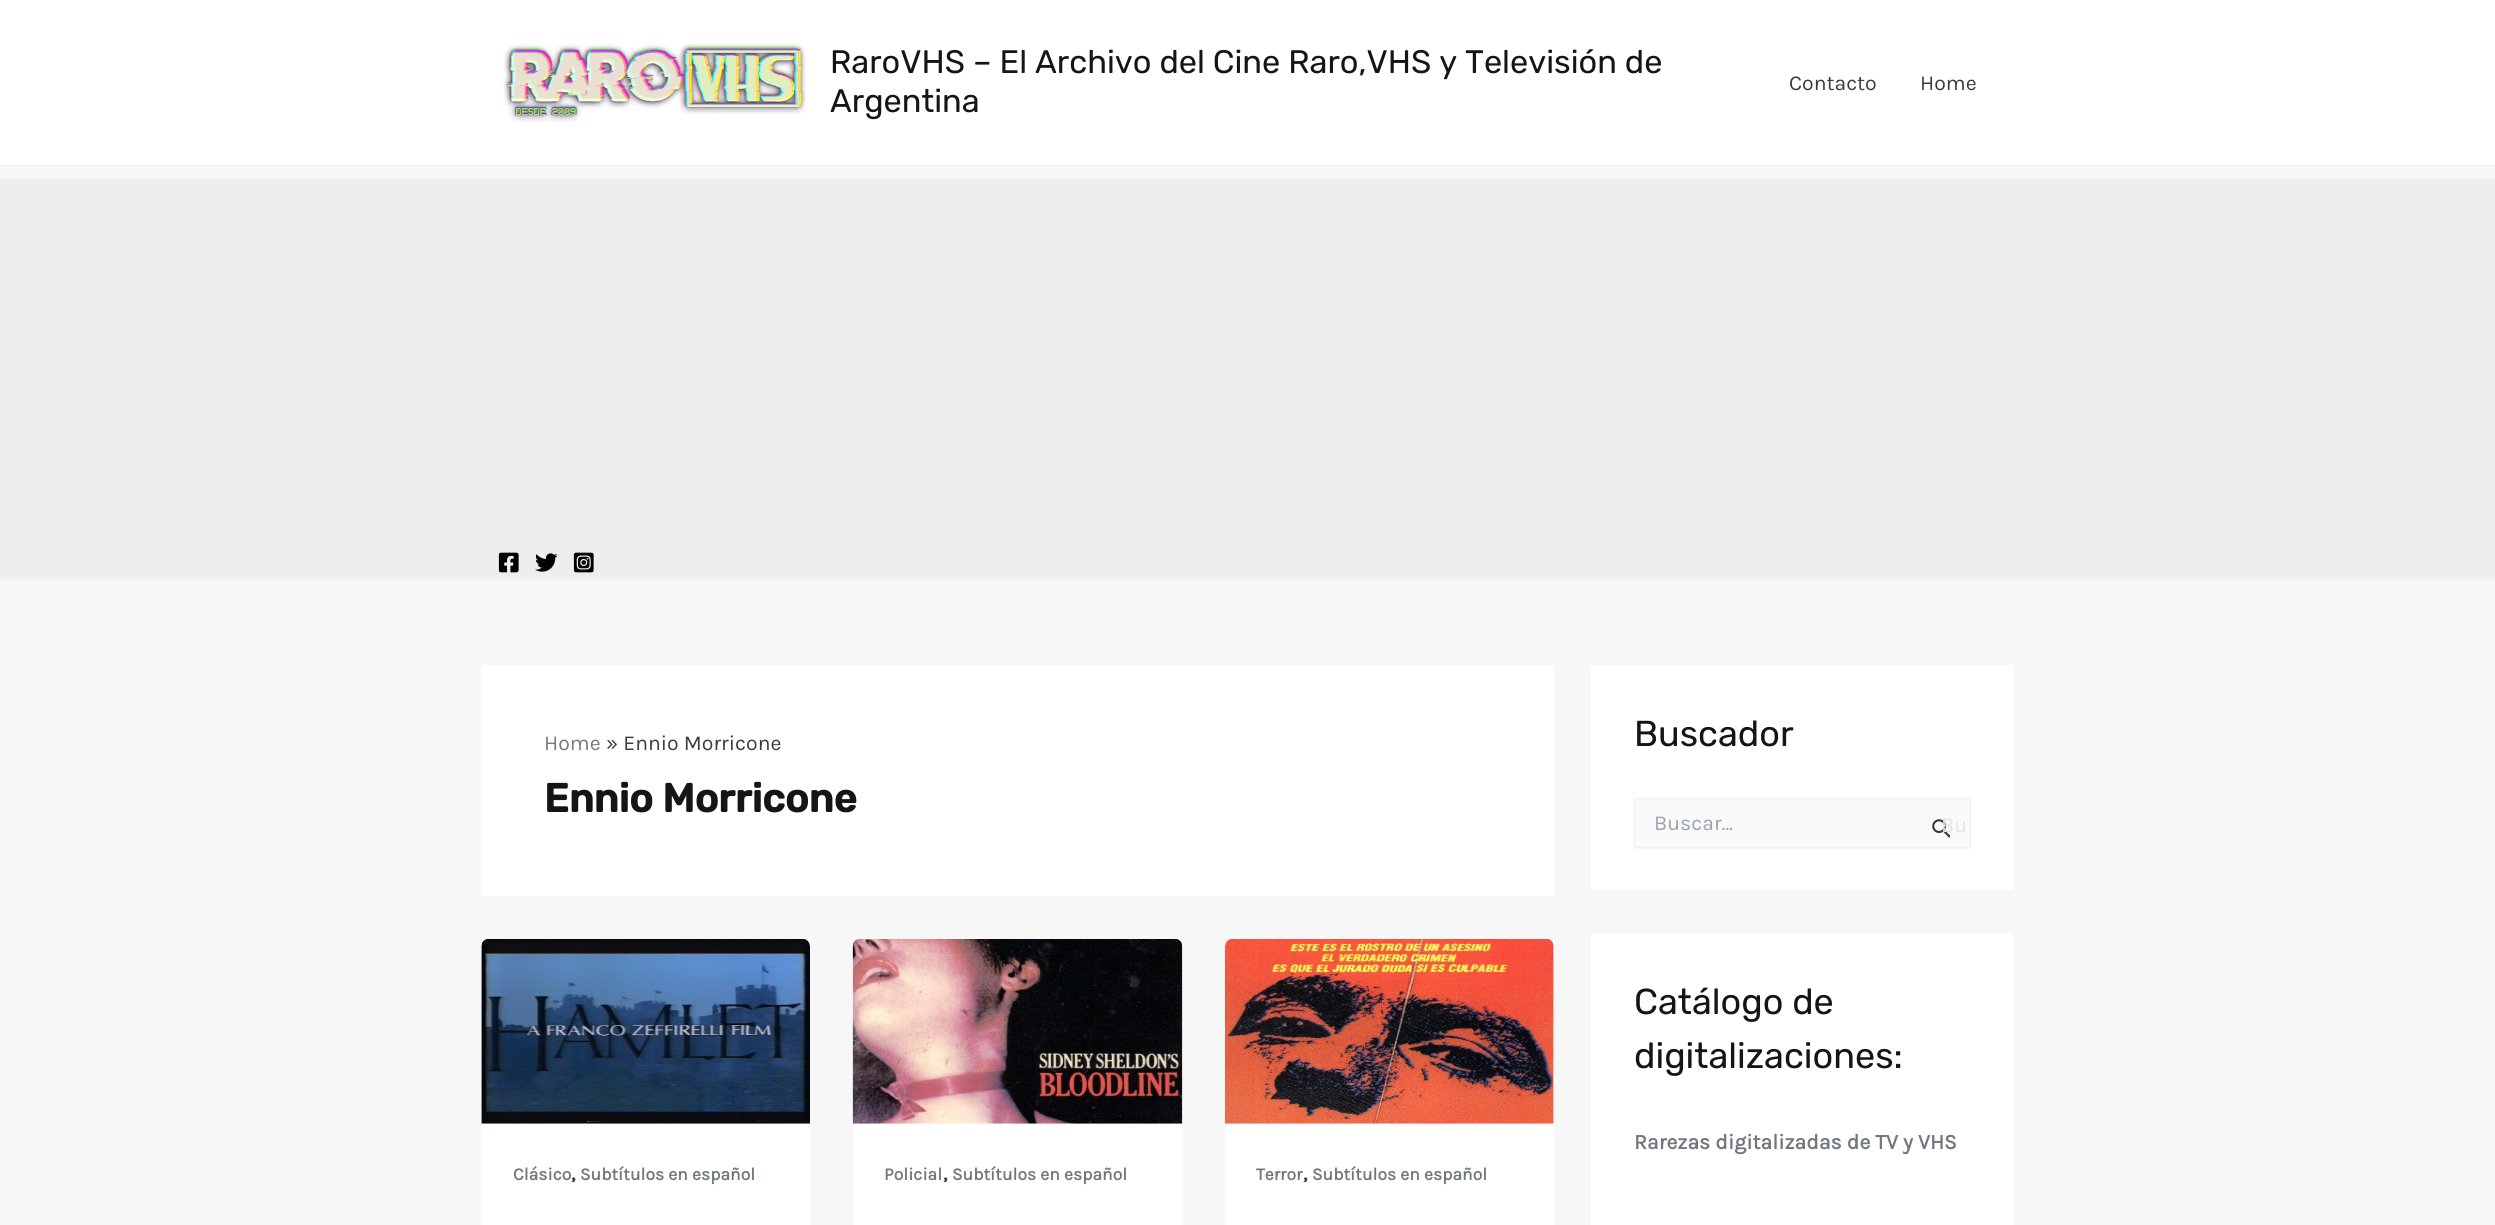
#include <cairo.h>
#include <math.h>
#include <stddef.h>


static void round_rect(cairo_t *cr, double x, double y, double w, double h, double r) {
    cairo_new_sub_path(cr);
    cairo_arc(cr, x + w - r, y + h - r, r, 0, M_PI / 2);
    cairo_arc(cr, x + r, y + h - r, r, M_PI / 2, M_PI);
    cairo_arc(cr, x + r, y + r, r, M_PI, 1.5 * M_PI);
    cairo_arc(cr, x + w - r, y + r, r, 1.5 * M_PI, 2 * M_PI);
    cairo_close_path(cr);
}

static void shadow(cairo_t *cr, double x, double y, double w, double h, double r, double blur, double alpha) {
    cairo_push_group_with_content(cr, CAIRO_CONTENT_ALPHA);
    cairo_set_operator(cr, CAIRO_OPERATOR_SOURCE);
    for (int i = 15; i >= -15 && fmin(w, h) + blur * i / 3 > 0; i -= 2) {
        double e = blur * i / 6;
        cairo_set_source_rgba(cr, 0, 0, 0, alpha * erfc((i - 1) / 8.5) / 2);
        round_rect(cr, x - e, y - e, w + 2 * e, h + 2 * e, fmax(0, fmin(r + e + blur * .6, fmin(w, h) / 2 + e)));
        cairo_fill(cr);
    }
    cairo_pattern_t *soft = cairo_pop_group(cr);
    cairo_mask(cr, soft);
    cairo_pattern_destroy(soft);
}

static void picture(cairo_t *cr, const char *path, double x, double y, double w, double h) {
    cairo_surface_t *image = cairo_image_surface_create_from_png(path);
    cairo_save(cr);
    cairo_set_source_surface(cr, image, x, y);
    cairo_rectangle(cr, x, y, w, h);
    cairo_fill(cr);
    cairo_restore(cr);
    cairo_surface_destroy(image);
}

int main(void) {
    cairo_surface_t *surface = cairo_image_surface_create(CAIRO_FORMAT_RGB24, 2495, 1225);
    cairo_t *cr = cairo_create(surface);
    cairo_font_options_t *options = cairo_font_options_create();
    cairo_font_options_set_hint_metrics(options, CAIRO_HINT_METRICS_OFF);
    cairo_font_options_set_hint_style(options, CAIRO_HINT_STYLE_NONE);
    cairo_set_font_options(cr, options);
    cairo_set_miter_limit(cr, 4);
    cairo_set_source_rgb(cr, 0.965, 0.965, 0.965);
    cairo_paint(cr);
    cairo_set_source_rgb(cr, 1, 1, 1);
    cairo_rectangle(cr, 0, 0, 2495, 165);
    cairo_fill(cr);
    cairo_set_source_rgb(cr, 0.945, 0.941, 0.941);
    cairo_rectangle(cr, 0, 165, 2495, 1);
    cairo_fill(cr);
    picture(cr, "img1.png", 503, 43, 303, 79);
    cairo_select_font_face(cr, "Rubik", CAIRO_FONT_SLANT_NORMAL, CAIRO_FONT_WEIGHT_NORMAL);
    cairo_set_font_size(cr, 32.5);
    cairo_set_source_rgb(cr, 0.082, 0.086, 0.086);
    cairo_move_to(cr, 830, 73);
    cairo_show_text(cr, "RaroVHS – El Archivo del Cine Raro,VHS y Televisión de");
    cairo_move_to(cr, 830, 112);
    cairo_show_text(cr, "Argentina");
    cairo_select_font_face(cr, "Karla", CAIRO_FONT_SLANT_NORMAL, CAIRO_FONT_WEIGHT_NORMAL);
    cairo_set_font_size(cr, 21.25);
    cairo_set_source_rgb(cr, 0.224, 0.235, 0.251);
    cairo_move_to(cr, 1789, 90);
    cairo_show_text(cr, "Contacto");
    cairo_move_to(cr, 1920, 90);
    cairo_show_text(cr, "Home");
    cairo_set_source_rgb(cr, 0.933, 0.933, 0.933);
    cairo_rectangle(cr, 0, 179, 2495, 400);
    cairo_fill(cr);
    cairo_set_source_rgb(cr, 0.945, 0.941, 0.941);
    cairo_rectangle(cr, 0, 579, 2495, 1);
    cairo_fill(cr);
    picture(cr, "img2.png", 498, 552, 21, 21);
    picture(cr, "img3.png", 535, 553, 23, 19);
    picture(cr, "img4.png", 573, 552, 21, 21);
    cairo_set_source_rgb(cr, 1, 1, 1);
    cairo_rectangle(cr, 481, 665, 1073, 231);
    cairo_fill(cr);
    cairo_set_source_rgb(cr, 0.451, 0.471, 0.502);
    cairo_move_to(cr, 544, 750);
    cairo_show_text(cr, "Home");
    cairo_set_source_rgb(cr, 0.224, 0.235, 0.251);
    cairo_move_to(cr, 606, 750);
    cairo_show_text(cr, "» Ennio Morricone");
    cairo_select_font_face(cr, "Rubik", CAIRO_FONT_SLANT_NORMAL, CAIRO_FONT_WEIGHT_BOLD);
    cairo_set_font_size(cr, 40);
    cairo_set_source_rgb(cr, 0.082, 0.086, 0.086);
    cairo_move_to(cr, 544, 812);
    cairo_show_text(cr, "Ennio Morricone");
    cairo_set_source_rgb(cr, 1, 1, 1);
    round_rect(cr, 481, 939, 329, 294, 8);
    cairo_fill(cr);
    picture(cr, "img5.png", 481, 939, 329, 185);
    cairo_select_font_face(cr, "Karla", CAIRO_FONT_SLANT_NORMAL, CAIRO_FONT_WEIGHT_BOLD);
    cairo_set_font_size(cr, 17.5);
    cairo_set_source_rgb(cr, 0.451, 0.471, 0.502);
    cairo_move_to(cr, 513, 1180);
    cairo_show_text(cr, "Clásico");
    cairo_set_font_size(cr, 21.25);
    cairo_set_source_rgb(cr, 0.224, 0.235, 0.251);
    cairo_move_to(cr, 571, 1180);
    cairo_show_text(cr, ",");
    cairo_set_font_size(cr, 17.5);
    cairo_set_source_rgb(cr, 0.451, 0.471, 0.502);
    cairo_move_to(cr, 580, 1180);
    cairo_show_text(cr, "Subtítulos en español");
    cairo_set_source_rgb(cr, 1, 1, 1);
    round_rect(cr, 853, 939, 330, 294, 8);
    cairo_fill(cr);
    picture(cr, "img6.png", 852, 939, 331, 185);
    cairo_set_source_rgb(cr, 0.451, 0.471, 0.502);
    cairo_move_to(cr, 884, 1180);
    cairo_show_text(cr, "Policial");
    cairo_set_font_size(cr, 21.25);
    cairo_set_source_rgb(cr, 0.224, 0.235, 0.251);
    cairo_move_to(cr, 943, 1180);
    cairo_show_text(cr, ",");
    cairo_set_font_size(cr, 17.5);
    cairo_set_source_rgb(cr, 0.451, 0.471, 0.502);
    cairo_move_to(cr, 952, 1180);
    cairo_show_text(cr, "Subtítulos en español");
    cairo_set_source_rgb(cr, 1, 1, 1);
    round_rect(cr, 1225, 939, 329, 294, 8);
    cairo_fill(cr);
    picture(cr, "img7.png", 1225, 939, 329, 185);
    cairo_set_source_rgb(cr, 0.451, 0.471, 0.502);
    cairo_move_to(cr, 1256, 1180);
    cairo_show_text(cr, "Terror");
    cairo_set_font_size(cr, 21.25);
    cairo_set_source_rgb(cr, 0.224, 0.235, 0.251);
    cairo_move_to(cr, 1303, 1180);
    cairo_show_text(cr, ",");
    cairo_set_font_size(cr, 17.5);
    cairo_set_source_rgb(cr, 0.451, 0.471, 0.502);
    cairo_move_to(cr, 1312, 1180);
    cairo_show_text(cr, "Subtítulos en español");
    cairo_set_source_rgb(cr, 1, 1, 1);
    cairo_rectangle(cr, 1591, 665, 423, 225);
    cairo_fill(cr);
    cairo_select_font_face(cr, "Rubik", CAIRO_FONT_SLANT_NORMAL, CAIRO_FONT_WEIGHT_NORMAL);
    cairo_set_font_size(cr, 36);
    cairo_set_source_rgb(cr, 0.082, 0.086, 0.086);
    cairo_move_to(cr, 1634, 746);
    cairo_show_text(cr, "Buscador");
    cairo_set_source_rgb(cr, 0, 0, 0);
    shadow(cr, 1634, 799, 337, 50, 2.5, 1, 0.05);
    cairo_set_source_rgb(cr, 0.98, 0.98, 0.98);
    round_rect(cr, 1634.5, 798.5, 336, 49, 2);
    cairo_fill_preserve(cr);
    cairo_set_source_rgb(cr, 0.945, 0.941, 0.941);
    cairo_set_line_width(cr, 1);
    cairo_stroke(cr);
    cairo_select_font_face(cr, "Karla", CAIRO_FONT_SLANT_NORMAL, CAIRO_FONT_WEIGHT_NORMAL);
    cairo_set_font_size(cr, 21.25);
    cairo_set_source_rgb(cr, 0.612, 0.639, 0.686);
    cairo_move_to(cr, 1654, 830);
    cairo_show_text(cr, "Buscar...");
    picture(cr, "img8.png", 1932, 819, 18, 19);
    cairo_set_source_rgb(cr, 0.886, 0.886, 0.886);
    cairo_move_to(cr, 1941, 832);
    cairo_show_text(cr, "Bu");
    cairo_set_source_rgb(cr, 1, 1, 1);
    cairo_rectangle(cr, 1591, 933, 423, 292);
    cairo_fill(cr);
    cairo_select_font_face(cr, "Rubik", CAIRO_FONT_SLANT_NORMAL, CAIRO_FONT_WEIGHT_NORMAL);
    cairo_set_font_size(cr, 36);
    cairo_set_source_rgb(cr, 0.082, 0.086, 0.086);
    cairo_move_to(cr, 1634, 1014);
    cairo_show_text(cr, "Catálogo de");
    cairo_move_to(cr, 1634, 1068);
    cairo_show_text(cr, "digitalizaciones:");
    cairo_select_font_face(cr, "Karla", CAIRO_FONT_SLANT_NORMAL, CAIRO_FONT_WEIGHT_BOLD);
    cairo_set_font_size(cr, 21.25);
    cairo_set_source_rgb(cr, 0.451, 0.471, 0.502);
    cairo_move_to(cr, 1634, 1149);
    cairo_show_text(cr, "Rarezas digitalizadas de TV y VHS");
    cairo_surface_write_to_png(surface, "page.png");
    cairo_font_options_destroy(options);
    cairo_destroy(cr);
    cairo_surface_destroy(surface);
    return 0;
}
